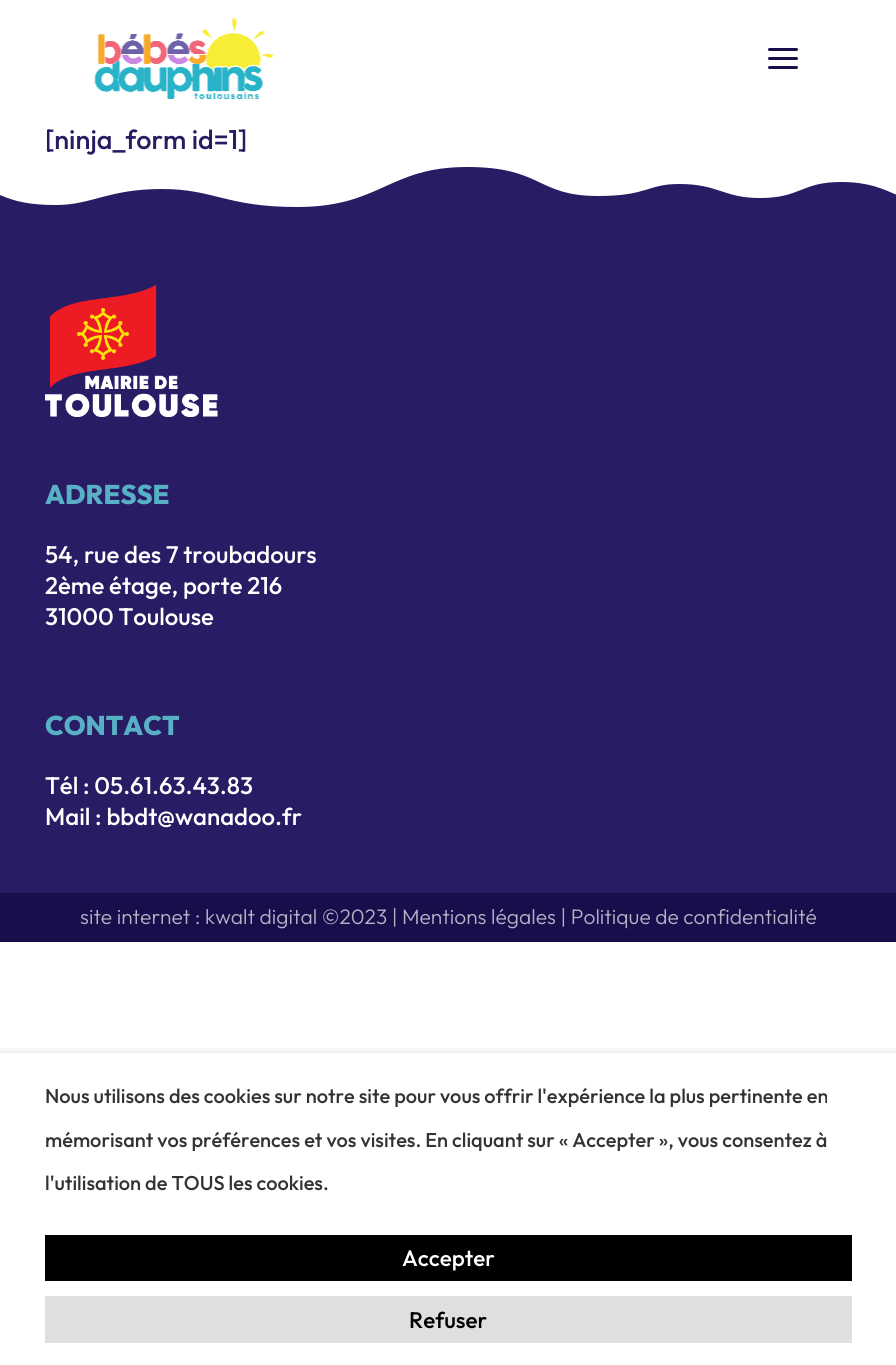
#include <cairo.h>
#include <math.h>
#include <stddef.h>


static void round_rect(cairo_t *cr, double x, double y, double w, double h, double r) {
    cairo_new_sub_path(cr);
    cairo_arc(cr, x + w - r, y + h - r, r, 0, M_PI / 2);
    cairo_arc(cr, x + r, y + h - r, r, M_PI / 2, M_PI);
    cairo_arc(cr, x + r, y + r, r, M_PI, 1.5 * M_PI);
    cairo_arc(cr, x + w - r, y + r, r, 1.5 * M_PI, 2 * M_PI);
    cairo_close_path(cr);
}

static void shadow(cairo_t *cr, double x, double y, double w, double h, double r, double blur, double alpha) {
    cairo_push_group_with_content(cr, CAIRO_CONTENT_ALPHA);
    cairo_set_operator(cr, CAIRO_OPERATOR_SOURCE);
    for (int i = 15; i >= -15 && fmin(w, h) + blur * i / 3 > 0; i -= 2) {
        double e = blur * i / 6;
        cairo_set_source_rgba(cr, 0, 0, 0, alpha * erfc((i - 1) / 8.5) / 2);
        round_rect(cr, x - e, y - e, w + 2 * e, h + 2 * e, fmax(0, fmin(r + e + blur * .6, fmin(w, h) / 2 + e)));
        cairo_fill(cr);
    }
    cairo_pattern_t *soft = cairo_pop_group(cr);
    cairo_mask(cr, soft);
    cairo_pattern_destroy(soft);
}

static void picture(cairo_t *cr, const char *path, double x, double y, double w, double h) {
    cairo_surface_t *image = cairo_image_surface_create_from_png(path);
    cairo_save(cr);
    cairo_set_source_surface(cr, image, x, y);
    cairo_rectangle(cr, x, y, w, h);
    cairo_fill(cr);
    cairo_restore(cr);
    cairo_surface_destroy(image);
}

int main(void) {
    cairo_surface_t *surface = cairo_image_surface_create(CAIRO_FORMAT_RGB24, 896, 1365);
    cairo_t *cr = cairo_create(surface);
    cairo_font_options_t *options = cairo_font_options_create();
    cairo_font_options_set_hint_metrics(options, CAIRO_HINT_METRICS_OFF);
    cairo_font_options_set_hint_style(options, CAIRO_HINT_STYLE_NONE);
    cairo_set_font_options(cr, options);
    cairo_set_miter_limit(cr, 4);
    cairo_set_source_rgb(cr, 1, 1, 1);
    cairo_paint(cr);
    picture(cr, "img1.png", 94, 18, 180, 82);
    picture(cr, "img2.png", 768, 48, 30, 21);
    cairo_select_font_face(cr, "Outfit Medium", CAIRO_FONT_SLANT_NORMAL, CAIRO_FONT_WEIGHT_NORMAL);
    cairo_set_font_size(cr, 27);
    cairo_set_source_rgb(cr, 0.157, 0.11, 0.392);
    cairo_move_to(cr, 45, 149);
    cairo_show_text(cr, "[ninja_form id=1]");
    cairo_rectangle(cr, 0, 167, 896, 726);
    cairo_fill(cr);
    cairo_set_source_rgb(cr, 1, 1, 1);
    cairo_new_path(cr);
    cairo_move_to(cr, 0, 162);
    cairo_line_to(cr, 0, 195);
    cairo_curve_to(cr, 14, 201, 28, 205, 56, 205);
    cairo_curve_to(cr, 92, 205, 108, 189, 162, 189);
    cairo_curve_to(cr, 214, 189, 226, 207, 297, 207);
    cairo_curve_to(cr, 381, 207, 388, 167, 467, 167);
    cairo_curve_to(cr, 543, 167, 536, 196, 598, 196);
    cairo_curve_to(cr, 648, 196, 647, 184, 679, 184);
    cairo_curve_to(cr, 719, 184, 723, 198, 760, 198);
    cairo_curve_to(cr, 801, 198, 801, 182, 841, 182);
    cairo_curve_to(cr, 869, 182, 883, 189, 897, 195);
    cairo_line_to(cr, 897, 162);
    cairo_close_path(cr);
    cairo_fill(cr);
    picture(cr, "img3.png", 45, 285, 173, 132);
    cairo_select_font_face(cr, "Outfit ExtraBold", CAIRO_FONT_SLANT_NORMAL, CAIRO_FONT_WEIGHT_NORMAL);
    cairo_set_source_rgb(cr, 0.345, 0.69, 0.773);
    cairo_move_to(cr, 45, 504);
    cairo_show_text(cr, "ADRESSE");
    cairo_select_font_face(cr, "Outfit Medium", CAIRO_FONT_SLANT_NORMAL, CAIRO_FONT_WEIGHT_NORMAL);
    cairo_set_font_size(cr, 24);
    cairo_set_source_rgb(cr, 1, 1, 1);
    cairo_move_to(cr, 45, 563);
    cairo_show_text(cr, "54, rue des 7 troubadours");
    cairo_move_to(cr, 45, 594);
    cairo_show_text(cr, "2ème étage, porte 216");
    cairo_move_to(cr, 45, 625);
    cairo_show_text(cr, "31000 Toulouse");
    cairo_select_font_face(cr, "Outfit ExtraBold", CAIRO_FONT_SLANT_NORMAL, CAIRO_FONT_WEIGHT_NORMAL);
    cairo_set_font_size(cr, 27);
    cairo_set_source_rgb(cr, 0.345, 0.69, 0.773);
    cairo_move_to(cr, 45, 735);
    cairo_show_text(cr, "CONTACT");
    cairo_select_font_face(cr, "Outfit Medium", CAIRO_FONT_SLANT_NORMAL, CAIRO_FONT_WEIGHT_NORMAL);
    cairo_set_font_size(cr, 24);
    cairo_set_source_rgb(cr, 1, 1, 1);
    cairo_move_to(cr, 45, 794);
    cairo_show_text(cr, "Tél : 05.61.63.43.83");
    cairo_move_to(cr, 45, 825);
    cairo_show_text(cr, "Mail : bbdt@wanadoo.fr");
    cairo_set_source_rgb(cr, 0.098, 0.055, 0.294);
    cairo_rectangle(cr, 0, 893, 896, 49);
    cairo_fill(cr);
    cairo_select_font_face(cr, "Outfit Light", CAIRO_FONT_SLANT_NORMAL, CAIRO_FONT_WEIGHT_NORMAL);
    cairo_set_font_size(cr, 21);
    cairo_set_source_rgb(cr, 0.71, 0.698, 0.773);
    cairo_move_to(cr, 80, 924);
    cairo_show_text(cr, "site internet : kwalt digital ©2023 | Mentions légales | Politique de confidentialité");
    cairo_save(cr);
    cairo_rectangle(cr, 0, 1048, 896, 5);
    cairo_clip(cr);
    cairo_set_source_rgb(cr, 0, 0, 0);
    shadow(cr, 0, 1061, 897, 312, 0, 7.5, 0.5);
    cairo_restore(cr);
    cairo_select_font_face(cr, "Outfit Medium", CAIRO_FONT_SLANT_NORMAL, CAIRO_FONT_WEIGHT_NORMAL);
    cairo_set_font_size(cr, 20);
    cairo_set_source_rgb(cr, 0.2, 0.2, 0.2);
    cairo_move_to(cr, 45, 1103);
    cairo_show_text(cr, "Nous utilisons des cookies sur notre site pour vous offrir l'expérience la plus pertinente en");
    cairo_move_to(cr, 45, 1147);
    cairo_show_text(cr, "mémorisant vos préférences et vos visites. En cliquant sur « Accepter », vous consentez à");
    cairo_move_to(cr, 45, 1190);
    cairo_show_text(cr, "l'utilisation de TOUS les cookies.");
    cairo_set_source_rgb(cr, 0, 0, 0);
    cairo_rectangle(cr, 45, 1235, 807, 46);
    cairo_fill(cr);
    cairo_set_font_size(cr, 22.5);
    cairo_set_source_rgb(cr, 1, 1, 1);
    cairo_move_to(cr, 402, 1266);
    cairo_show_text(cr, "Accepter");
    cairo_set_source_rgb(cr, 0.871, 0.875, 0.878);
    cairo_rectangle(cr, 45, 1296, 807, 47);
    cairo_fill(cr);
    cairo_set_source_rgb(cr, 0, 0, 0);
    cairo_move_to(cr, 409, 1328);
    cairo_show_text(cr, "Refuser");
    cairo_surface_write_to_png(surface, "page.png");
    cairo_font_options_destroy(options);
    cairo_destroy(cr);
    cairo_surface_destroy(surface);
    return 0;
}
